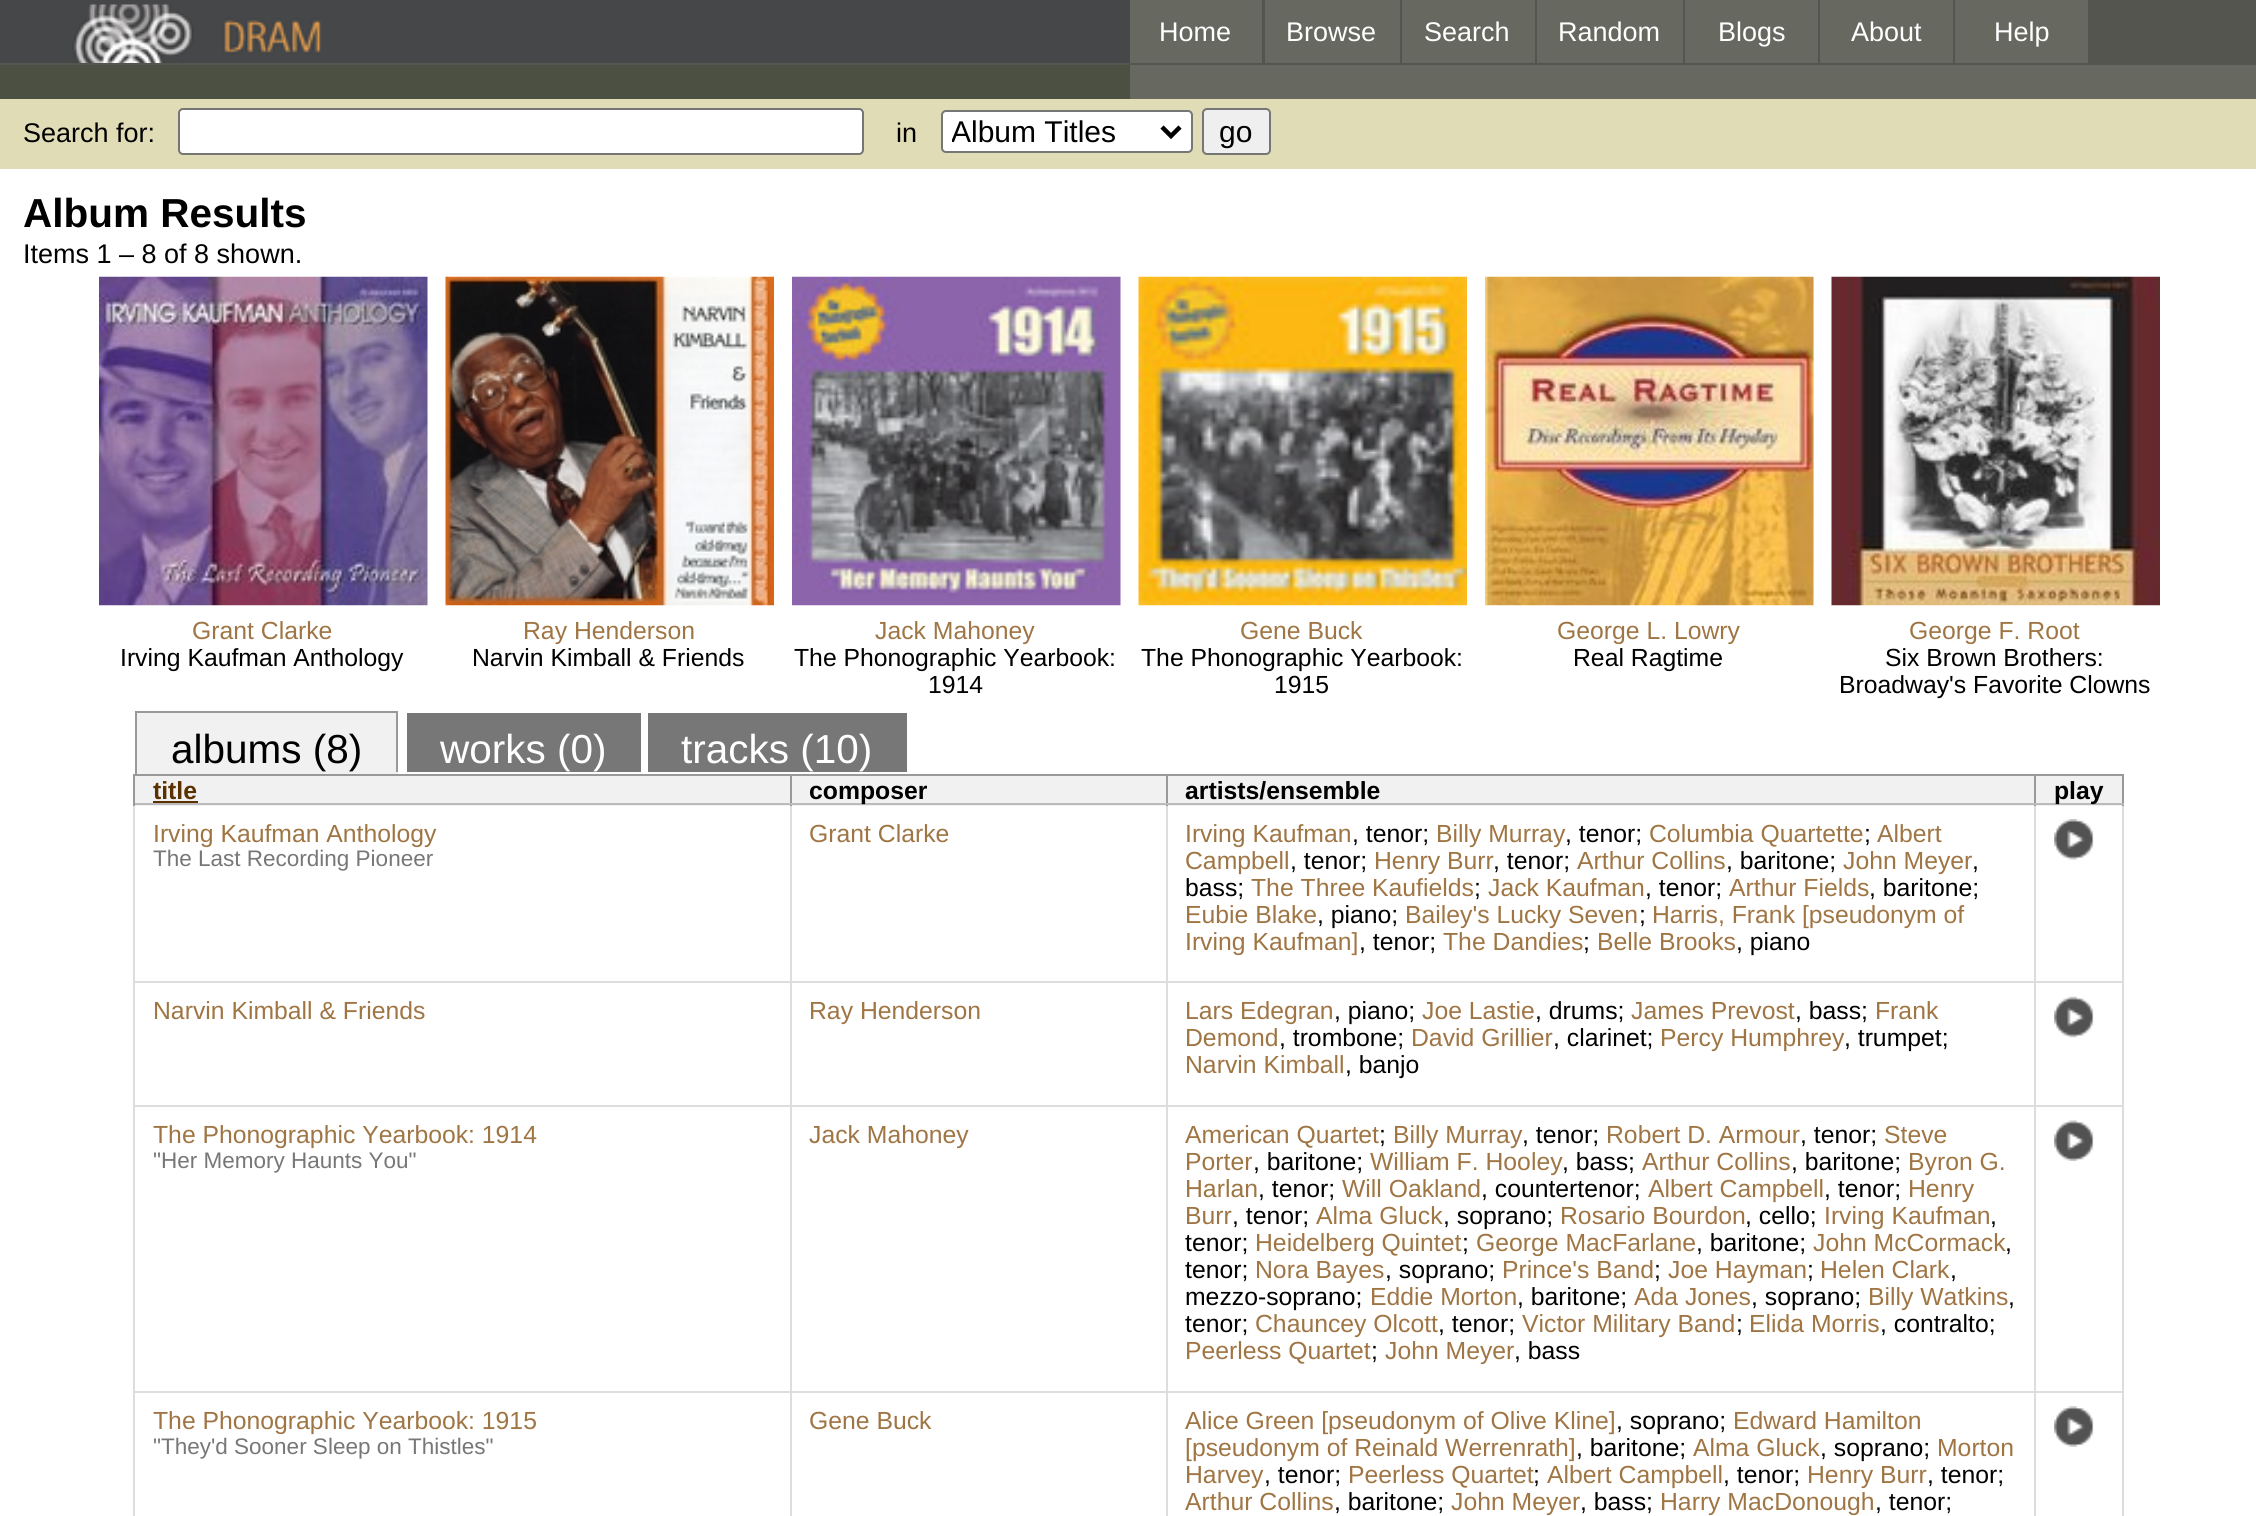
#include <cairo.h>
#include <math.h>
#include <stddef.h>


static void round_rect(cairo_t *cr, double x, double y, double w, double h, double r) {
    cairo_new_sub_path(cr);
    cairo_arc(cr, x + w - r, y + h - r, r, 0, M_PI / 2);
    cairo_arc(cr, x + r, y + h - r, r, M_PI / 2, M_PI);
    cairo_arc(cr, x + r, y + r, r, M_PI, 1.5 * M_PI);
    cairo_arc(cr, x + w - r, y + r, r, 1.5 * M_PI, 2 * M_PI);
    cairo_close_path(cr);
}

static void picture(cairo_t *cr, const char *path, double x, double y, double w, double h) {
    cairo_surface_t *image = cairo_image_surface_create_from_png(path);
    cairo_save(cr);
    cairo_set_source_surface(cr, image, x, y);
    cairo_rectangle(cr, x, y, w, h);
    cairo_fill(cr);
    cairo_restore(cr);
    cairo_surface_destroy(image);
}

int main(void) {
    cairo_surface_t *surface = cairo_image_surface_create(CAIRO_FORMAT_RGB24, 2256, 1516);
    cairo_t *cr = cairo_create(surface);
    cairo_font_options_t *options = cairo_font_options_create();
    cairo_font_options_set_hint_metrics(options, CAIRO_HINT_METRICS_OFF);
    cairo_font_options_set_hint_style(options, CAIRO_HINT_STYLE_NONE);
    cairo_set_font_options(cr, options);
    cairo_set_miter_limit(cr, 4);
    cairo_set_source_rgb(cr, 0.275, 0.278, 0.286);
    cairo_paint(cr);
    picture(cr, "img1.png", 72, 4, 250, 59);
    cairo_set_source_rgb(cr, 0.325, 0.333, 0.306);
    cairo_rectangle(cr, 1262, 0, 994, 63);
    cairo_fill(cr);
    cairo_set_source_rgb(cr, 0.404, 0.408, 0.373);
    cairo_rectangle(cr, 1130, 0, 132, 63);
    cairo_fill(cr);
    cairo_select_font_face(cr, "Liberation Sans", CAIRO_FONT_SLANT_NORMAL, CAIRO_FONT_WEIGHT_NORMAL);
    cairo_set_font_size(cr, 27);
    cairo_set_source_rgb(cr, 1, 1, 1);
    cairo_move_to(cr, 1159, 41);
    cairo_show_text(cr, "Home");
    cairo_set_source_rgb(cr, 0.404, 0.408, 0.373);
    cairo_rectangle(cr, 1265, 0, 135, 63);
    cairo_fill(cr);
    cairo_set_source_rgb(cr, 1, 1, 1);
    cairo_move_to(cr, 1286, 41);
    cairo_show_text(cr, "Browse");
    cairo_set_source_rgb(cr, 0.404, 0.408, 0.373);
    cairo_rectangle(cr, 1402, 0, 133, 63);
    cairo_fill(cr);
    cairo_set_source_rgb(cr, 1, 1, 1);
    cairo_move_to(cr, 1424, 41);
    cairo_show_text(cr, "Search");
    cairo_set_source_rgb(cr, 0.404, 0.408, 0.373);
    cairo_rectangle(cr, 1537, 0, 146, 63);
    cairo_fill(cr);
    cairo_set_source_rgb(cr, 1, 1, 1);
    cairo_move_to(cr, 1558, 41);
    cairo_show_text(cr, "Random");
    cairo_set_source_rgb(cr, 0.404, 0.408, 0.373);
    cairo_rectangle(cr, 1685, 0, 133, 63);
    cairo_fill(cr);
    cairo_set_source_rgb(cr, 1, 1, 1);
    cairo_move_to(cr, 1718, 41);
    cairo_show_text(cr, "Blogs");
    cairo_set_source_rgb(cr, 0.404, 0.408, 0.373);
    cairo_rectangle(cr, 1820, 0, 133, 63);
    cairo_fill(cr);
    cairo_set_source_rgb(cr, 1, 1, 1);
    cairo_move_to(cr, 1851, 41);
    cairo_show_text(cr, "About");
    cairo_set_source_rgb(cr, 0.404, 0.408, 0.373);
    cairo_rectangle(cr, 1955, 0, 133, 63);
    cairo_fill(cr);
    cairo_set_source_rgb(cr, 1, 1, 1);
    cairo_move_to(cr, 1994, 41);
    cairo_show_text(cr, "Help");
    cairo_set_source_rgb(cr, 0.404, 0.408, 0.373);
    cairo_rectangle(cr, 1130, 65, 1126, 34);
    cairo_fill(cr);
    cairo_set_source_rgb(cr, 0.325, 0.333, 0.306);
    cairo_rectangle(cr, 0, 63, 2256, 2);
    cairo_fill(cr);
    cairo_set_source_rgb(cr, 0.294, 0.314, 0.259);
    cairo_rectangle(cr, 0, 65, 1130, 34);
    cairo_fill(cr);
    cairo_set_source_rgb(cr, 0.875, 0.863, 0.714);
    cairo_rectangle(cr, 0, 99, 2256, 70);
    cairo_fill(cr);
    cairo_set_source_rgb(cr, 0, 0, 0);
    cairo_move_to(cr, 23, 142);
    cairo_show_text(cr, "Search for:");
    cairo_set_source_rgb(cr, 1, 1, 1);
    round_rect(cr, 179, 109, 684, 45, 4);
    cairo_fill_preserve(cr);
    cairo_set_source_rgb(cr, 0.463, 0.463, 0.463);
    cairo_stroke(cr);
    cairo_set_source_rgb(cr, 0, 0, 0);
    cairo_move_to(cr, 896, 142);
    cairo_show_text(cr, "in");
    cairo_set_source_rgb(cr, 1, 1, 1);
    round_rect(cr, 942, 111, 250, 41, 4);
    cairo_fill_preserve(cr);
    cairo_set_source_rgb(cr, 0.463, 0.463, 0.463);
    cairo_stroke(cr);
    cairo_new_path(cr);
    cairo_move_to(cr, 1162, 127);
    cairo_line_to(cr, 1171, 136);
    cairo_line_to(cr, 1180, 127);
    cairo_set_source_rgb(cr, 0, 0, 0);
    cairo_set_line_width(cr, 4.5);
    cairo_stroke(cr);
    cairo_save(cr);
    cairo_rectangle(cr, 952, 113, 202, 38);
    cairo_clip(cr);
    cairo_set_font_size(cr, 30);
    cairo_move_to(cr, 951, 142);
    cairo_show_text(cr, "Album Titles");
    cairo_restore(cr);
    cairo_set_source_rgb(cr, 0.937, 0.937, 0.937);
    round_rect(cr, 1203, 109, 67, 45, 4);
    cairo_fill_preserve(cr);
    cairo_set_source_rgb(cr, 0.463, 0.463, 0.463);
    cairo_set_line_width(cr, 2);
    cairo_stroke(cr);
    cairo_set_font_size(cr, 30);
    cairo_set_source_rgb(cr, 0, 0, 0);
    cairo_move_to(cr, 1219, 142);
    cairo_show_text(cr, "go");
    cairo_set_source_rgb(cr, 1, 1, 1);
    cairo_rectangle(cr, 0, 169, 2256, 1347);
    cairo_fill(cr);
    cairo_select_font_face(cr, "Liberation Sans", CAIRO_FONT_SLANT_NORMAL, CAIRO_FONT_WEIGHT_BOLD);
    cairo_set_font_size(cr, 40.5);
    cairo_set_source_rgb(cr, 0, 0, 0);
    cairo_move_to(cr, 23, 227);
    cairo_show_text(cr, "Album Results");
    cairo_select_font_face(cr, "Liberation Sans", CAIRO_FONT_SLANT_NORMAL, CAIRO_FONT_WEIGHT_NORMAL);
    cairo_set_font_size(cr, 27);
    cairo_move_to(cr, 23, 263);
    cairo_show_text(cr, "Items 1 – 8 of 8 shown.");
    picture(cr, "img2.png", 99, 276, 329, 330);
    cairo_set_font_size(cr, 24.75);
    cairo_set_source_rgb(cr, 0.624, 0.459, 0.267);
    cairo_move_to(cr, 192, 639);
    cairo_show_text(cr, "Grant Clarke");
    cairo_set_source_rgb(cr, 0, 0, 0);
    cairo_move_to(cr, 120, 666);
    cairo_show_text(cr, "Irving Kaufman Anthology");
    picture(cr, "img3.png", 445, 276, 329, 330);
    cairo_set_source_rgb(cr, 0.624, 0.459, 0.267);
    cairo_move_to(cr, 523, 639);
    cairo_show_text(cr, "Ray Henderson");
    cairo_set_source_rgb(cr, 0, 0, 0);
    cairo_move_to(cr, 472, 666);
    cairo_show_text(cr, "Narvin Kimball & Friends");
    picture(cr, "img4.png", 792, 276, 329, 330);
    cairo_set_source_rgb(cr, 0.624, 0.459, 0.267);
    cairo_move_to(cr, 875, 639);
    cairo_show_text(cr, "Jack Mahoney");
    cairo_set_source_rgb(cr, 0, 0, 0);
    cairo_move_to(cr, 794, 666);
    cairo_show_text(cr, "The Phonographic Yearbook:");
    cairo_move_to(cr, 928, 693);
    cairo_show_text(cr, "1914");
    picture(cr, "img5.png", 1138, 276, 329, 330);
    cairo_set_source_rgb(cr, 0.624, 0.459, 0.267);
    cairo_move_to(cr, 1240, 639);
    cairo_show_text(cr, "Gene Buck");
    cairo_set_source_rgb(cr, 0, 0, 0);
    cairo_move_to(cr, 1141, 666);
    cairo_show_text(cr, "The Phonographic Yearbook:");
    cairo_move_to(cr, 1274, 693);
    cairo_show_text(cr, "1915");
    picture(cr, "img6.png", 1485, 276, 329, 330);
    cairo_set_source_rgb(cr, 0.624, 0.459, 0.267);
    cairo_move_to(cr, 1557, 639);
    cairo_show_text(cr, "George L. Lowry");
    cairo_set_source_rgb(cr, 0, 0, 0);
    cairo_move_to(cr, 1573, 666);
    cairo_show_text(cr, "Real Ragtime");
    picture(cr, "img7.png", 1831, 276, 329, 330);
    cairo_set_source_rgb(cr, 0.624, 0.459, 0.267);
    cairo_move_to(cr, 1909, 639);
    cairo_show_text(cr, "George F. Root");
    cairo_set_source_rgb(cr, 0, 0, 0);
    cairo_move_to(cr, 1885, 666);
    cairo_show_text(cr, "Six Brown Brothers:");
    cairo_move_to(cr, 1839, 693);
    cairo_show_text(cr, "Broadway's Favorite Clowns");
    cairo_set_source_rgb(cr, 0.945, 0.945, 0.945);
    cairo_rectangle(cr, 137, 713, 259, 59);
    cairo_fill(cr);
    cairo_set_font_size(cr, 40.5);
    cairo_set_source_rgb(cr, 0, 0, 0);
    cairo_move_to(cr, 171, 763);
    cairo_show_text(cr, "albums (8)");
    cairo_set_source_rgb(cr, 0.6, 0.6, 0.6);
    cairo_rectangle(cr, 135, 711, 263, 2);
    cairo_fill(cr);
    cairo_rectangle(cr, 396, 711, 2, 63);
    cairo_fill(cr);
    cairo_set_source_rgb(cr, 0.945, 0.945, 0.945);
    cairo_rectangle(cr, 135, 772, 263, 2);
    cairo_fill(cr);
    cairo_set_source_rgb(cr, 0.6, 0.6, 0.6);
    cairo_rectangle(cr, 135, 711, 2, 63);
    cairo_fill(cr);
    cairo_set_source_rgb(cr, 0.467, 0.467, 0.467);
    cairo_rectangle(cr, 407, 713, 234, 59);
    cairo_fill(cr);
    cairo_set_source_rgb(cr, 1, 1, 1);
    cairo_move_to(cr, 440, 763);
    cairo_show_text(cr, "works (0)");
    cairo_set_source_rgb(cr, 0.467, 0.467, 0.467);
    cairo_rectangle(cr, 648, 713, 259, 59);
    cairo_fill(cr);
    cairo_set_source_rgb(cr, 1, 1, 1);
    cairo_move_to(cr, 681, 763);
    cairo_show_text(cr, "tracks (10)");
    cairo_set_source_rgb(cr, 0.945, 0.945, 0.945);
    cairo_rectangle(cr, 135, 776, 655, 30);
    cairo_fill(cr);
    cairo_set_source_rgb(cr, 0.6, 0.6, 0.6);
    cairo_rectangle(cr, 2034, 774, 90, 2);
    cairo_fill(cr);
    cairo_set_source_rgb(cr, 0.945, 0.945, 0.945);
    cairo_rectangle(cr, 2036, 776, 86, 30);
    cairo_fill(cr);
    cairo_set_source_rgb(cr, 0.867, 0.867, 0.867);
    cairo_rectangle(cr, 2122, 803, 2, 713);
    cairo_fill(cr);
    cairo_set_source_rgb(cr, 0.6, 0.6, 0.6);
    cairo_rectangle(cr, 2122, 774, 2, 32);
    cairo_fill(cr);
    cairo_set_source_rgb(cr, 0.867, 0.867, 0.867);
    cairo_rectangle(cr, 2034, 1391, 2, 125);
    cairo_fill(cr);
    cairo_rectangle(cr, 2034, 1391, 90, 2);
    cairo_fill(cr);
    cairo_rectangle(cr, 2034, 1105, 2, 288);
    cairo_fill(cr);
    cairo_rectangle(cr, 2034, 1105, 90, 2);
    cairo_fill(cr);
    cairo_rectangle(cr, 2034, 981, 2, 126);
    cairo_fill(cr);
    cairo_rectangle(cr, 2034, 981, 90, 2);
    cairo_fill(cr);
    cairo_rectangle(cr, 2034, 803, 2, 180);
    cairo_fill(cr);
    cairo_set_source_rgb(cr, 0.733, 0.733, 0.733);
    cairo_rectangle(cr, 2034, 803, 90, 2);
    cairo_fill(cr);
    cairo_set_source_rgb(cr, 0.6, 0.6, 0.6);
    cairo_rectangle(cr, 2034, 774, 2, 32);
    cairo_fill(cr);
    cairo_rectangle(cr, 1166, 774, 870, 2);
    cairo_fill(cr);
    cairo_set_source_rgb(cr, 0.945, 0.945, 0.945);
    cairo_rectangle(cr, 1168, 776, 866, 30);
    cairo_fill(cr);
    cairo_set_source_rgb(cr, 0.867, 0.867, 0.867);
    cairo_rectangle(cr, 1166, 1391, 2, 125);
    cairo_fill(cr);
    cairo_rectangle(cr, 1166, 1391, 870, 2);
    cairo_fill(cr);
    cairo_rectangle(cr, 1166, 1105, 2, 288);
    cairo_fill(cr);
    cairo_rectangle(cr, 1166, 1105, 870, 2);
    cairo_fill(cr);
    cairo_rectangle(cr, 1166, 981, 2, 126);
    cairo_fill(cr);
    cairo_rectangle(cr, 1166, 981, 870, 2);
    cairo_fill(cr);
    cairo_rectangle(cr, 1166, 803, 2, 180);
    cairo_fill(cr);
    cairo_set_source_rgb(cr, 0.733, 0.733, 0.733);
    cairo_rectangle(cr, 1166, 803, 870, 2);
    cairo_fill(cr);
    cairo_set_source_rgb(cr, 0.6, 0.6, 0.6);
    cairo_rectangle(cr, 1166, 774, 2, 32);
    cairo_fill(cr);
    cairo_rectangle(cr, 790, 774, 378, 2);
    cairo_fill(cr);
    cairo_set_source_rgb(cr, 0.945, 0.945, 0.945);
    cairo_rectangle(cr, 792, 776, 374, 30);
    cairo_fill(cr);
    cairo_set_source_rgb(cr, 0.867, 0.867, 0.867);
    cairo_rectangle(cr, 790, 1391, 2, 125);
    cairo_fill(cr);
    cairo_rectangle(cr, 790, 1391, 378, 2);
    cairo_fill(cr);
    cairo_rectangle(cr, 790, 1105, 2, 288);
    cairo_fill(cr);
    cairo_rectangle(cr, 790, 1105, 378, 2);
    cairo_fill(cr);
    cairo_rectangle(cr, 790, 981, 2, 126);
    cairo_fill(cr);
    cairo_rectangle(cr, 790, 981, 378, 2);
    cairo_fill(cr);
    cairo_rectangle(cr, 790, 803, 2, 180);
    cairo_fill(cr);
    cairo_set_source_rgb(cr, 0.733, 0.733, 0.733);
    cairo_rectangle(cr, 790, 803, 378, 2);
    cairo_fill(cr);
    cairo_set_source_rgb(cr, 0.6, 0.6, 0.6);
    cairo_rectangle(cr, 790, 774, 2, 32);
    cairo_fill(cr);
    cairo_rectangle(cr, 133, 774, 659, 2);
    cairo_fill(cr);
    cairo_set_source_rgb(cr, 0.867, 0.867, 0.867);
    cairo_rectangle(cr, 133, 1391, 2, 125);
    cairo_fill(cr);
    cairo_rectangle(cr, 133, 1391, 659, 2);
    cairo_fill(cr);
    cairo_rectangle(cr, 133, 1105, 2, 288);
    cairo_fill(cr);
    cairo_rectangle(cr, 133, 1105, 659, 2);
    cairo_fill(cr);
    cairo_rectangle(cr, 133, 981, 2, 126);
    cairo_fill(cr);
    cairo_rectangle(cr, 133, 981, 659, 2);
    cairo_fill(cr);
    cairo_rectangle(cr, 133, 803, 2, 180);
    cairo_fill(cr);
    cairo_set_source_rgb(cr, 0.733, 0.733, 0.733);
    cairo_rectangle(cr, 133, 803, 659, 2);
    cairo_fill(cr);
    cairo_set_source_rgb(cr, 0.6, 0.6, 0.6);
    cairo_rectangle(cr, 133, 774, 2, 32);
    cairo_fill(cr);
    cairo_select_font_face(cr, "Liberation Sans", CAIRO_FONT_SLANT_NORMAL, CAIRO_FONT_WEIGHT_BOLD);
    cairo_set_font_size(cr, 24.75);
    cairo_set_source_rgb(cr, 0.357, 0.192, 0);
    cairo_move_to(cr, 153, 799);
    cairo_show_text(cr, "title");
    cairo_rectangle(cr, 153, 801, 45, 2);
    cairo_fill(cr);
    cairo_set_source_rgb(cr, 0, 0, 0);
    cairo_move_to(cr, 809, 799);
    cairo_show_text(cr, "composer");
    cairo_move_to(cr, 1185, 799);
    cairo_show_text(cr, "artists/ensemble");
    cairo_move_to(cr, 2054, 799);
    cairo_show_text(cr, "play");
    cairo_select_font_face(cr, "Liberation Sans", CAIRO_FONT_SLANT_NORMAL, CAIRO_FONT_WEIGHT_NORMAL);
    cairo_set_source_rgb(cr, 0.624, 0.459, 0.267);
    cairo_move_to(cr, 153, 842);
    cairo_show_text(cr, "Irving Kaufman Anthology");
    cairo_set_font_size(cr, 22.5);
    cairo_set_source_rgb(cr, 0.467, 0.467, 0.467);
    cairo_move_to(cr, 153, 866);
    cairo_show_text(cr, "The Last Recording Pioneer");
    cairo_set_font_size(cr, 24.75);
    cairo_set_source_rgb(cr, 0.624, 0.459, 0.267);
    cairo_move_to(cr, 809, 842);
    cairo_show_text(cr, "Grant Clarke");
    cairo_move_to(cr, 1185, 842);
    cairo_show_text(cr, "Irving Kaufman");
    cairo_set_source_rgb(cr, 0, 0, 0);
    cairo_move_to(cr, 1352, 842);
    cairo_show_text(cr, ", tenor;");
    cairo_set_source_rgb(cr, 0.624, 0.459, 0.267);
    cairo_move_to(cr, 1436, 842);
    cairo_show_text(cr, "Billy Murray");
    cairo_set_source_rgb(cr, 0, 0, 0);
    cairo_move_to(cr, 1565, 842);
    cairo_show_text(cr, ", tenor;");
    cairo_set_source_rgb(cr, 0.624, 0.459, 0.267);
    cairo_move_to(cr, 1649, 842);
    cairo_show_text(cr, "Columbia Quartette");
    cairo_set_source_rgb(cr, 0, 0, 0);
    cairo_move_to(cr, 1864, 842);
    cairo_show_text(cr, ";");
    cairo_set_source_rgb(cr, 0.624, 0.459, 0.267);
    cairo_move_to(cr, 1877, 842);
    cairo_show_text(cr, "Albert");
    cairo_move_to(cr, 1185, 869);
    cairo_show_text(cr, "Campbell");
    cairo_set_source_rgb(cr, 0, 0, 0);
    cairo_move_to(cr, 1290, 869);
    cairo_show_text(cr, ", tenor;");
    cairo_set_source_rgb(cr, 0.624, 0.459, 0.267);
    cairo_move_to(cr, 1374, 869);
    cairo_show_text(cr, "Henry Burr");
    cairo_set_source_rgb(cr, 0, 0, 0);
    cairo_move_to(cr, 1493, 869);
    cairo_show_text(cr, ", tenor;");
    cairo_set_source_rgb(cr, 0.624, 0.459, 0.267);
    cairo_move_to(cr, 1577, 869);
    cairo_show_text(cr, "Arthur Collins");
    cairo_set_source_rgb(cr, 0, 0, 0);
    cairo_move_to(cr, 1726, 869);
    cairo_show_text(cr, ", baritone;");
    cairo_set_source_rgb(cr, 0.624, 0.459, 0.267);
    cairo_move_to(cr, 1843, 869);
    cairo_show_text(cr, "John Meyer");
    cairo_set_source_rgb(cr, 0, 0, 0);
    cairo_move_to(cr, 1972, 869);
    cairo_show_text(cr, ",");
    cairo_move_to(cr, 1185, 896);
    cairo_show_text(cr, "bass;");
    cairo_set_source_rgb(cr, 0.624, 0.459, 0.267);
    cairo_move_to(cr, 1251, 896);
    cairo_show_text(cr, "The Three Kaufields");
    cairo_set_source_rgb(cr, 0, 0, 0);
    cairo_move_to(cr, 1474, 896);
    cairo_show_text(cr, ";");
    cairo_set_source_rgb(cr, 0.624, 0.459, 0.267);
    cairo_move_to(cr, 1488, 896);
    cairo_show_text(cr, "Jack Kaufman");
    cairo_set_source_rgb(cr, 0, 0, 0);
    cairo_move_to(cr, 1645, 896);
    cairo_show_text(cr, ", tenor;");
    cairo_set_source_rgb(cr, 0.624, 0.459, 0.267);
    cairo_move_to(cr, 1729, 896);
    cairo_show_text(cr, "Arthur Fields");
    cairo_set_source_rgb(cr, 0, 0, 0);
    cairo_move_to(cr, 1869, 896);
    cairo_show_text(cr, ", baritone;");
    cairo_set_source_rgb(cr, 0.624, 0.459, 0.267);
    cairo_move_to(cr, 1185, 923);
    cairo_show_text(cr, "Eubie Blake");
    cairo_set_source_rgb(cr, 0, 0, 0);
    cairo_move_to(cr, 1317, 923);
    cairo_show_text(cr, ", piano;");
    cairo_set_source_rgb(cr, 0.624, 0.459, 0.267);
    cairo_move_to(cr, 1405, 923);
    cairo_show_text(cr, "Bailey's Lucky Seven");
    cairo_set_source_rgb(cr, 0, 0, 0);
    cairo_move_to(cr, 1639, 923);
    cairo_show_text(cr, ";");
    cairo_set_source_rgb(cr, 0.624, 0.459, 0.267);
    cairo_move_to(cr, 1652, 923);
    cairo_show_text(cr, "Harris, Frank [pseudonym of");
    cairo_move_to(cr, 1185, 950);
    cairo_show_text(cr, "Irving Kaufman]");
    cairo_set_source_rgb(cr, 0, 0, 0);
    cairo_move_to(cr, 1359, 950);
    cairo_show_text(cr, ", tenor;");
    cairo_set_source_rgb(cr, 0.624, 0.459, 0.267);
    cairo_move_to(cr, 1443, 950);
    cairo_show_text(cr, "The Dandies");
    cairo_set_source_rgb(cr, 0, 0, 0);
    cairo_move_to(cr, 1583, 950);
    cairo_show_text(cr, ";");
    cairo_set_source_rgb(cr, 0.624, 0.459, 0.267);
    cairo_move_to(cr, 1597, 950);
    cairo_show_text(cr, "Belle Brooks");
    cairo_set_source_rgb(cr, 0, 0, 0);
    cairo_move_to(cr, 1736, 950);
    cairo_show_text(cr, ", piano");
    picture(cr, "img8.png", 2054, 819, 40, 41);
    cairo_set_source_rgb(cr, 0.624, 0.459, 0.267);
    cairo_move_to(cr, 153, 1019);
    cairo_show_text(cr, "Narvin Kimball & Friends");
    cairo_move_to(cr, 809, 1019);
    cairo_show_text(cr, "Ray Henderson");
    cairo_move_to(cr, 1185, 1019);
    cairo_show_text(cr, "Lars Edegran");
    cairo_set_source_rgb(cr, 0, 0, 0);
    cairo_move_to(cr, 1334, 1019);
    cairo_show_text(cr, ", piano;");
    cairo_set_source_rgb(cr, 0.624, 0.459, 0.267);
    cairo_move_to(cr, 1422, 1019);
    cairo_show_text(cr, "Joe Lastie");
    cairo_set_source_rgb(cr, 0, 0, 0);
    cairo_move_to(cr, 1535, 1019);
    cairo_show_text(cr, ", drums;");
    cairo_set_source_rgb(cr, 0.624, 0.459, 0.267);
    cairo_move_to(cr, 1631, 1019);
    cairo_show_text(cr, "James Prevost");
    cairo_set_source_rgb(cr, 0, 0, 0);
    cairo_move_to(cr, 1795, 1019);
    cairo_show_text(cr, ", bass;");
    cairo_set_source_rgb(cr, 0.624, 0.459, 0.267);
    cairo_move_to(cr, 1875, 1019);
    cairo_show_text(cr, "Frank");
    cairo_move_to(cr, 1185, 1046);
    cairo_show_text(cr, "Demond");
    cairo_set_source_rgb(cr, 0, 0, 0);
    cairo_move_to(cr, 1279, 1046);
    cairo_show_text(cr, ", trombone;");
    cairo_set_source_rgb(cr, 0.624, 0.459, 0.267);
    cairo_move_to(cr, 1411, 1046);
    cairo_show_text(cr, "David Grillier");
    cairo_set_source_rgb(cr, 0, 0, 0);
    cairo_move_to(cr, 1553, 1046);
    cairo_show_text(cr, ", clarinet;");
    cairo_set_source_rgb(cr, 0.624, 0.459, 0.267);
    cairo_move_to(cr, 1660, 1046);
    cairo_show_text(cr, "Percy Humphrey");
    cairo_set_source_rgb(cr, 0, 0, 0);
    cairo_move_to(cr, 1844, 1046);
    cairo_show_text(cr, ", trumpet;");
    cairo_set_source_rgb(cr, 0.624, 0.459, 0.267);
    cairo_move_to(cr, 1185, 1073);
    cairo_show_text(cr, "Narvin Kimball");
    cairo_set_source_rgb(cr, 0, 0, 0);
    cairo_move_to(cr, 1345, 1073);
    cairo_show_text(cr, ", banjo");
    picture(cr, "img9.png", 2054, 996, 40, 42);
    cairo_set_source_rgb(cr, 0.624, 0.459, 0.267);
    cairo_move_to(cr, 153, 1143);
    cairo_show_text(cr, "The Phonographic Yearbook: 1914");
    cairo_set_font_size(cr, 22.5);
    cairo_set_source_rgb(cr, 0.467, 0.467, 0.467);
    cairo_move_to(cr, 153, 1168);
    cairo_show_text(cr, "\"Her Memory Haunts You\"");
    cairo_set_font_size(cr, 24.75);
    cairo_set_source_rgb(cr, 0.624, 0.459, 0.267);
    cairo_move_to(cr, 809, 1143);
    cairo_show_text(cr, "Jack Mahoney");
    cairo_move_to(cr, 1185, 1143);
    cairo_show_text(cr, "American Quartet");
    cairo_set_source_rgb(cr, 0, 0, 0);
    cairo_move_to(cr, 1379, 1143);
    cairo_show_text(cr, ";");
    cairo_set_source_rgb(cr, 0.624, 0.459, 0.267);
    cairo_move_to(cr, 1393, 1143);
    cairo_show_text(cr, "Billy Murray");
    cairo_set_source_rgb(cr, 0, 0, 0);
    cairo_move_to(cr, 1522, 1143);
    cairo_show_text(cr, ", tenor;");
    cairo_set_source_rgb(cr, 0.624, 0.459, 0.267);
    cairo_move_to(cr, 1606, 1143);
    cairo_show_text(cr, "Robert D. Armour");
    cairo_set_source_rgb(cr, 0, 0, 0);
    cairo_move_to(cr, 1800, 1143);
    cairo_show_text(cr, ", tenor;");
    cairo_set_source_rgb(cr, 0.624, 0.459, 0.267);
    cairo_move_to(cr, 1884, 1143);
    cairo_show_text(cr, "Steve");
    cairo_move_to(cr, 1185, 1170);
    cairo_show_text(cr, "Porter");
    cairo_set_source_rgb(cr, 0, 0, 0);
    cairo_move_to(cr, 1253, 1170);
    cairo_show_text(cr, ", baritone;");
    cairo_set_source_rgb(cr, 0.624, 0.459, 0.267);
    cairo_move_to(cr, 1370, 1170);
    cairo_show_text(cr, "William F. Hooley");
    cairo_set_source_rgb(cr, 0, 0, 0);
    cairo_move_to(cr, 1562, 1170);
    cairo_show_text(cr, ", bass;");
    cairo_set_source_rgb(cr, 0.624, 0.459, 0.267);
    cairo_move_to(cr, 1642, 1170);
    cairo_show_text(cr, "Arthur Collins");
    cairo_set_source_rgb(cr, 0, 0, 0);
    cairo_move_to(cr, 1791, 1170);
    cairo_show_text(cr, ", baritone;");
    cairo_set_source_rgb(cr, 0.624, 0.459, 0.267);
    cairo_move_to(cr, 1908, 1170);
    cairo_show_text(cr, "Byron G.");
    cairo_move_to(cr, 1185, 1197);
    cairo_show_text(cr, "Harlan");
    cairo_set_source_rgb(cr, 0, 0, 0);
    cairo_move_to(cr, 1258, 1197);
    cairo_show_text(cr, ", tenor;");
    cairo_set_source_rgb(cr, 0.624, 0.459, 0.267);
    cairo_move_to(cr, 1342, 1197);
    cairo_show_text(cr, "Will Oakland");
    cairo_set_source_rgb(cr, 0, 0, 0);
    cairo_move_to(cr, 1481, 1197);
    cairo_show_text(cr, ", countertenor;");
    cairo_set_source_rgb(cr, 0.624, 0.459, 0.267);
    cairo_move_to(cr, 1648, 1197);
    cairo_show_text(cr, "Albert Campbell");
    cairo_set_source_rgb(cr, 0, 0, 0);
    cairo_move_to(cr, 1824, 1197);
    cairo_show_text(cr, ", tenor;");
    cairo_set_source_rgb(cr, 0.624, 0.459, 0.267);
    cairo_move_to(cr, 1908, 1197);
    cairo_show_text(cr, "Henry");
    cairo_move_to(cr, 1185, 1224);
    cairo_show_text(cr, "Burr");
    cairo_set_source_rgb(cr, 0, 0, 0);
    cairo_move_to(cr, 1232, 1224);
    cairo_show_text(cr, ", tenor;");
    cairo_set_source_rgb(cr, 0.624, 0.459, 0.267);
    cairo_move_to(cr, 1316, 1224);
    cairo_show_text(cr, "Alma Gluck");
    cairo_set_source_rgb(cr, 0, 0, 0);
    cairo_move_to(cr, 1443, 1224);
    cairo_show_text(cr, ", soprano;");
    cairo_set_source_rgb(cr, 0.624, 0.459, 0.267);
    cairo_move_to(cr, 1560, 1224);
    cairo_show_text(cr, "Rosario Bourdon");
    cairo_set_source_rgb(cr, 0, 0, 0);
    cairo_move_to(cr, 1745, 1224);
    cairo_show_text(cr, ", cello;");
    cairo_set_source_rgb(cr, 0.624, 0.459, 0.267);
    cairo_move_to(cr, 1824, 1224);
    cairo_show_text(cr, "Irving Kaufman");
    cairo_set_source_rgb(cr, 0, 0, 0);
    cairo_move_to(cr, 1990, 1224);
    cairo_show_text(cr, ",");
    cairo_move_to(cr, 1185, 1251);
    cairo_show_text(cr, "tenor;");
    cairo_set_source_rgb(cr, 0.624, 0.459, 0.267);
    cairo_move_to(cr, 1255, 1251);
    cairo_show_text(cr, "Heidelberg Quintet");
    cairo_set_source_rgb(cr, 0, 0, 0);
    cairo_move_to(cr, 1462, 1251);
    cairo_show_text(cr, ";");
    cairo_set_source_rgb(cr, 0.624, 0.459, 0.267);
    cairo_move_to(cr, 1476, 1251);
    cairo_show_text(cr, "George MacFarlane");
    cairo_set_source_rgb(cr, 0, 0, 0);
    cairo_move_to(cr, 1696, 1251);
    cairo_show_text(cr, ", baritone;");
    cairo_set_source_rgb(cr, 0.624, 0.459, 0.267);
    cairo_move_to(cr, 1813, 1251);
    cairo_show_text(cr, "John McCormack");
    cairo_set_source_rgb(cr, 0, 0, 0);
    cairo_move_to(cr, 2005, 1251);
    cairo_show_text(cr, ",");
    cairo_move_to(cr, 1185, 1278);
    cairo_show_text(cr, "tenor;");
    cairo_set_source_rgb(cr, 0.624, 0.459, 0.267);
    cairo_move_to(cr, 1255, 1278);
    cairo_show_text(cr, "Nora Bayes");
    cairo_set_source_rgb(cr, 0, 0, 0);
    cairo_move_to(cr, 1385, 1278);
    cairo_show_text(cr, ", soprano;");
    cairo_set_source_rgb(cr, 0.624, 0.459, 0.267);
    cairo_move_to(cr, 1502, 1278);
    cairo_show_text(cr, "Prince's Band");
    cairo_set_source_rgb(cr, 0, 0, 0);
    cairo_move_to(cr, 1654, 1278);
    cairo_show_text(cr, ";");
    cairo_set_source_rgb(cr, 0.624, 0.459, 0.267);
    cairo_move_to(cr, 1668, 1278);
    cairo_show_text(cr, "Joe Hayman");
    cairo_set_source_rgb(cr, 0, 0, 0);
    cairo_move_to(cr, 1807, 1278);
    cairo_show_text(cr, ";");
    cairo_set_source_rgb(cr, 0.624, 0.459, 0.267);
    cairo_move_to(cr, 1820, 1278);
    cairo_show_text(cr, "Helen Clark");
    cairo_set_source_rgb(cr, 0, 0, 0);
    cairo_move_to(cr, 1950, 1278);
    cairo_show_text(cr, ",");
    cairo_move_to(cr, 1185, 1305);
    cairo_show_text(cr, "mezzo-soprano;");
    cairo_set_source_rgb(cr, 0.624, 0.459, 0.267);
    cairo_move_to(cr, 1370, 1305);
    cairo_show_text(cr, "Eddie Morton");
    cairo_set_source_rgb(cr, 0, 0, 0);
    cairo_move_to(cr, 1517, 1305);
    cairo_show_text(cr, ", baritone;");
    cairo_set_source_rgb(cr, 0.624, 0.459, 0.267);
    cairo_move_to(cr, 1634, 1305);
    cairo_show_text(cr, "Ada Jones");
    cairo_set_source_rgb(cr, 0, 0, 0);
    cairo_move_to(cr, 1751, 1305);
    cairo_show_text(cr, ", soprano;");
    cairo_set_source_rgb(cr, 0.624, 0.459, 0.267);
    cairo_move_to(cr, 1868, 1305);
    cairo_show_text(cr, "Billy Watkins");
    cairo_set_source_rgb(cr, 0, 0, 0);
    cairo_move_to(cr, 2008, 1305);
    cairo_show_text(cr, ",");
    cairo_move_to(cr, 1185, 1332);
    cairo_show_text(cr, "tenor;");
    cairo_set_source_rgb(cr, 0.624, 0.459, 0.267);
    cairo_move_to(cr, 1255, 1332);
    cairo_show_text(cr, "Chauncey Olcott");
    cairo_set_source_rgb(cr, 0, 0, 0);
    cairo_move_to(cr, 1438, 1332);
    cairo_show_text(cr, ", tenor;");
    cairo_set_source_rgb(cr, 0.624, 0.459, 0.267);
    cairo_move_to(cr, 1522, 1332);
    cairo_show_text(cr, "Victor Military Band");
    cairo_set_source_rgb(cr, 0, 0, 0);
    cairo_move_to(cr, 1736, 1332);
    cairo_show_text(cr, ";");
    cairo_set_source_rgb(cr, 0.624, 0.459, 0.267);
    cairo_move_to(cr, 1749, 1332);
    cairo_show_text(cr, "Elida Morris");
    cairo_set_source_rgb(cr, 0, 0, 0);
    cairo_move_to(cr, 1880, 1332);
    cairo_show_text(cr, ", contralto;");
    cairo_set_source_rgb(cr, 0.624, 0.459, 0.267);
    cairo_move_to(cr, 1185, 1359);
    cairo_show_text(cr, "Peerless Quartet");
    cairo_set_source_rgb(cr, 0, 0, 0);
    cairo_move_to(cr, 1371, 1359);
    cairo_show_text(cr, ";");
    cairo_set_source_rgb(cr, 0.624, 0.459, 0.267);
    cairo_move_to(cr, 1385, 1359);
    cairo_show_text(cr, "John Meyer");
    cairo_set_source_rgb(cr, 0, 0, 0);
    cairo_move_to(cr, 1514, 1359);
    cairo_show_text(cr, ", bass");
    picture(cr, "img10.png", 2054, 1120, 40, 41);
    cairo_set_source_rgb(cr, 0.624, 0.459, 0.267);
    cairo_move_to(cr, 153, 1429);
    cairo_show_text(cr, "The Phonographic Yearbook: 1915");
    cairo_set_font_size(cr, 22.5);
    cairo_set_source_rgb(cr, 0.467, 0.467, 0.467);
    cairo_move_to(cr, 153, 1454);
    cairo_show_text(cr, "\"They'd Sooner Sleep on Thistles\"");
    cairo_set_font_size(cr, 24.75);
    cairo_set_source_rgb(cr, 0.624, 0.459, 0.267);
    cairo_move_to(cr, 809, 1429);
    cairo_show_text(cr, "Gene Buck");
    cairo_move_to(cr, 1185, 1429);
    cairo_show_text(cr, "Alice Green [pseudonym of Olive Kline]");
    cairo_set_source_rgb(cr, 0, 0, 0);
    cairo_move_to(cr, 1616, 1429);
    cairo_show_text(cr, ", soprano;");
    cairo_set_source_rgb(cr, 0.624, 0.459, 0.267);
    cairo_move_to(cr, 1733, 1429);
    cairo_show_text(cr, "Edward Hamilton");
    cairo_move_to(cr, 1185, 1456);
    cairo_show_text(cr, "[pseudonym of Reinald Werrenrath]");
    cairo_set_source_rgb(cr, 0, 0, 0);
    cairo_move_to(cr, 1576, 1456);
    cairo_show_text(cr, ", baritone;");
    cairo_set_source_rgb(cr, 0.624, 0.459, 0.267);
    cairo_move_to(cr, 1693, 1456);
    cairo_show_text(cr, "Alma Gluck");
    cairo_set_source_rgb(cr, 0, 0, 0);
    cairo_move_to(cr, 1820, 1456);
    cairo_show_text(cr, ", soprano;");
    cairo_set_source_rgb(cr, 0.624, 0.459, 0.267);
    cairo_move_to(cr, 1937, 1456);
    cairo_show_text(cr, "Morton");
    cairo_move_to(cr, 1185, 1483);
    cairo_show_text(cr, "Harvey");
    cairo_set_source_rgb(cr, 0, 0, 0);
    cairo_move_to(cr, 1264, 1483);
    cairo_show_text(cr, ", tenor;");
    cairo_set_source_rgb(cr, 0.624, 0.459, 0.267);
    cairo_move_to(cr, 1348, 1483);
    cairo_show_text(cr, "Peerless Quartet");
    cairo_set_source_rgb(cr, 0, 0, 0);
    cairo_move_to(cr, 1533, 1483);
    cairo_show_text(cr, ";");
    cairo_set_source_rgb(cr, 0.624, 0.459, 0.267);
    cairo_move_to(cr, 1547, 1483);
    cairo_show_text(cr, "Albert Campbell");
    cairo_set_source_rgb(cr, 0, 0, 0);
    cairo_move_to(cr, 1723, 1483);
    cairo_show_text(cr, ", tenor;");
    cairo_set_source_rgb(cr, 0.624, 0.459, 0.267);
    cairo_move_to(cr, 1807, 1483);
    cairo_show_text(cr, "Henry Burr");
    cairo_set_source_rgb(cr, 0, 0, 0);
    cairo_move_to(cr, 1927, 1483);
    cairo_show_text(cr, ", tenor;");
    cairo_set_source_rgb(cr, 0.624, 0.459, 0.267);
    cairo_move_to(cr, 1185, 1510);
    cairo_show_text(cr, "Arthur Collins");
    cairo_set_source_rgb(cr, 0, 0, 0);
    cairo_move_to(cr, 1334, 1510);
    cairo_show_text(cr, ", baritone;");
    cairo_set_source_rgb(cr, 0.624, 0.459, 0.267);
    cairo_move_to(cr, 1451, 1510);
    cairo_show_text(cr, "John Meyer");
    cairo_set_source_rgb(cr, 0, 0, 0);
    cairo_move_to(cr, 1580, 1510);
    cairo_show_text(cr, ", bass;");
    cairo_set_source_rgb(cr, 0.624, 0.459, 0.267);
    cairo_move_to(cr, 1660, 1510);
    cairo_show_text(cr, "Harry MacDonough");
    cairo_set_source_rgb(cr, 0, 0, 0);
    cairo_move_to(cr, 1875, 1510);
    cairo_show_text(cr, ", tenor;");
    picture(cr, "img11.png", 2054, 1406, 40, 41);
    cairo_surface_write_to_png(surface, "page.png");
    cairo_font_options_destroy(options);
    cairo_destroy(cr);
    cairo_surface_destroy(surface);
    return 0;
}
